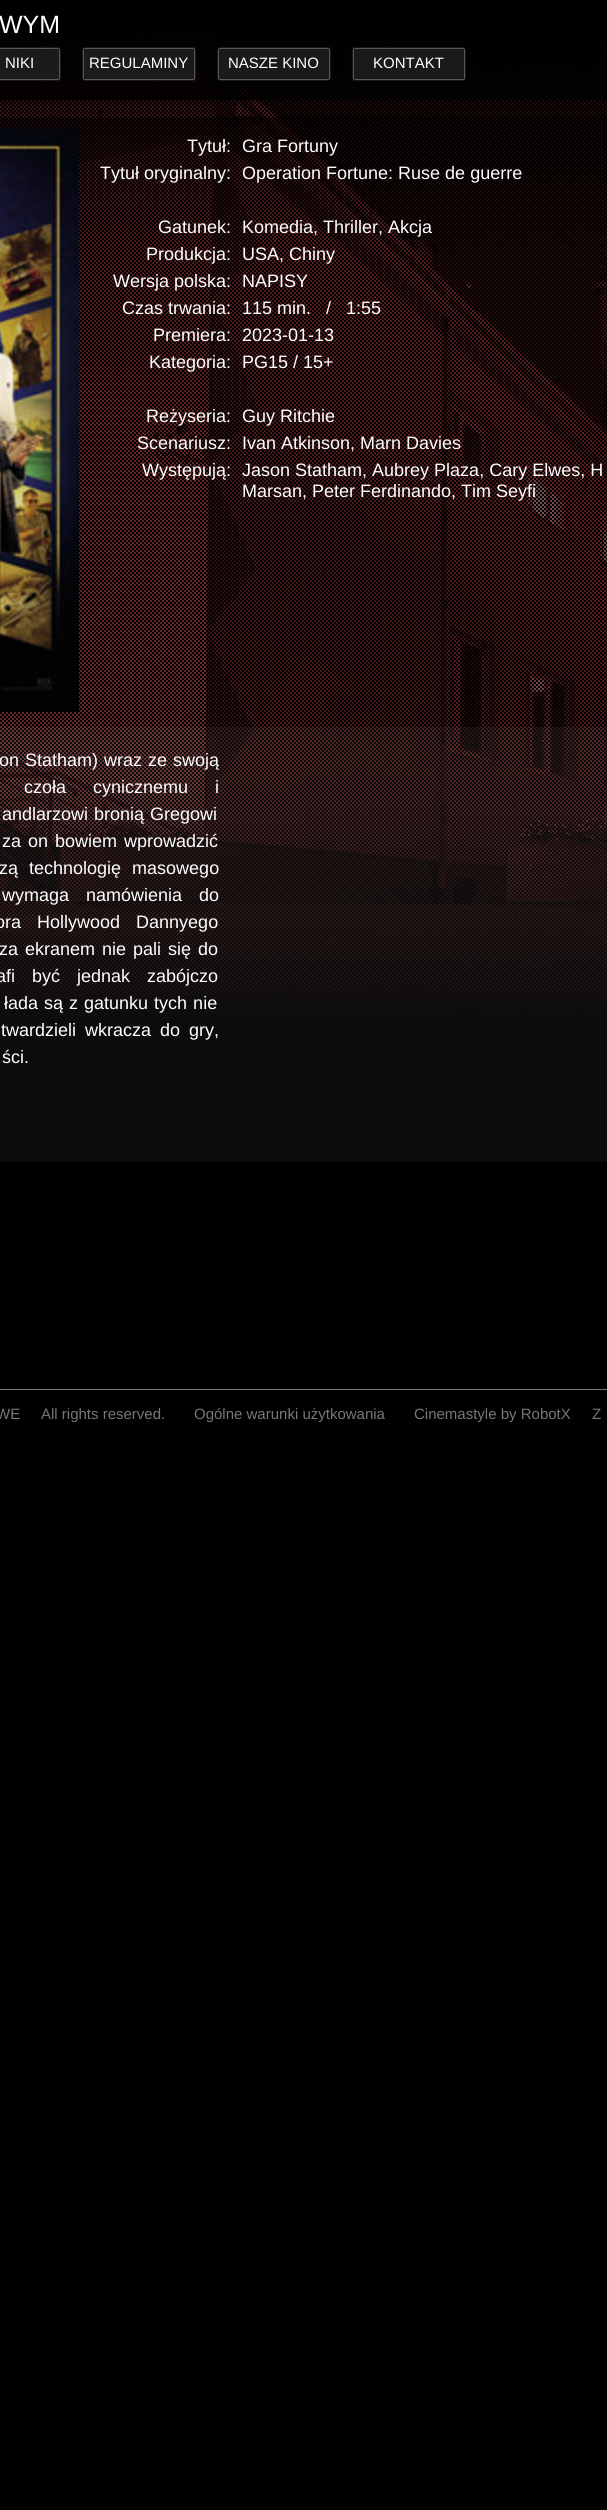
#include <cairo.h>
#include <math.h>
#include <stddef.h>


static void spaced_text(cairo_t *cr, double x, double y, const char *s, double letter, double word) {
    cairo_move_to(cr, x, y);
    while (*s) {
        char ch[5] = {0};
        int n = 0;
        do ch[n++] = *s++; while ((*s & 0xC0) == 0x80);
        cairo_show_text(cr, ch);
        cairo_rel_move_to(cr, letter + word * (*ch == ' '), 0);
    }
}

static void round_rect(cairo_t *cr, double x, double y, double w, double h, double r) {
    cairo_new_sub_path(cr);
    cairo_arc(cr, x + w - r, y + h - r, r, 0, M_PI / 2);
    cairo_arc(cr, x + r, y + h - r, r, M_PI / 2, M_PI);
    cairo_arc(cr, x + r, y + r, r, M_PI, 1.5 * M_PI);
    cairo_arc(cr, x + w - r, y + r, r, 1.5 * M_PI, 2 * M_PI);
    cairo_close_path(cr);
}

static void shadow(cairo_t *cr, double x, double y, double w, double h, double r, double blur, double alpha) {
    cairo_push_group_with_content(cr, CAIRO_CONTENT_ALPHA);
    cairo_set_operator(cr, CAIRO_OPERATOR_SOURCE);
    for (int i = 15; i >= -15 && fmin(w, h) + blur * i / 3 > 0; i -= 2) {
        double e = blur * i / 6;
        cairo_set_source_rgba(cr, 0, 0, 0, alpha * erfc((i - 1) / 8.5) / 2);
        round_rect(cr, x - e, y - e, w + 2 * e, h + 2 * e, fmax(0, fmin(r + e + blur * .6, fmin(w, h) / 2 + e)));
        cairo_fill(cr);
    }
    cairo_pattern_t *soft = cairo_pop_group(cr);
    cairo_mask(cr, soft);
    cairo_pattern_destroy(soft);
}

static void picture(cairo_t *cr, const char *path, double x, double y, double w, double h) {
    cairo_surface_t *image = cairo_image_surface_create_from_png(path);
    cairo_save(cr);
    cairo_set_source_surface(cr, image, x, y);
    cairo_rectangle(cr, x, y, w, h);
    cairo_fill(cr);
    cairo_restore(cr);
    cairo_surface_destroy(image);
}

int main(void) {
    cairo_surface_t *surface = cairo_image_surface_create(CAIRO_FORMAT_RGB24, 607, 2510);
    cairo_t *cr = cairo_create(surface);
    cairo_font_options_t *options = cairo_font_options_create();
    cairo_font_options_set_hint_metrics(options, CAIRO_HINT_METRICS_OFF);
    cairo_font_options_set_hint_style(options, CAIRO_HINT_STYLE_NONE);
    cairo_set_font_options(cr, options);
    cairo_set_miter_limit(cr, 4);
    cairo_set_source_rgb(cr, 0, 0, 0);
    cairo_paint(cr);
    picture(cr, "img1.png", 0, 1018, 607, 1);
    picture(cr, "img2.png", 0, 7, 607, 1011);
    cairo_set_source_rgba(cr, 0, 0, 0, 0.75);
    cairo_rectangle(cr, 0, 7, 607, 93);
    cairo_fill(cr);
    cairo_select_font_face(cr, "Liberation Sans", CAIRO_FONT_SLANT_NORMAL, CAIRO_FONT_WEIGHT_NORMAL);
    cairo_set_font_size(cr, 25);
    cairo_set_source_rgb(cr, 1, 1, 1);
    cairo_move_to(cr, -1, 33);
    cairo_show_text(cr, "WYM");
    cairo_save(cr);
    cairo_set_fill_rule(cr, CAIRO_FILL_RULE_EVEN_ODD);
    cairo_new_path(cr);
    cairo_move_to(cr, 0, 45);
    cairo_line_to(cr, 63, 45);
    cairo_line_to(cr, 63, 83);
    cairo_line_to(cr, 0, 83);
    cairo_close_path(cr);
    cairo_move_to(cr, -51, 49);
    cairo_line_to(cr, 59, 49);
    cairo_line_to(cr, 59, 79);
    cairo_line_to(cr, -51, 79);
    cairo_close_path(cr);
    cairo_clip(cr);
    cairo_set_source_rgb(cr, 1, 1, 1);
    shadow(cr, -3, 49, 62, 30, 0, 1, 1);
    cairo_restore(cr);
    cairo_set_source_rgba(cr, 1, 1, 1, 0.1);
    cairo_rectangle(cr, 0, 49, 59, 30);
    cairo_fill(cr);
    cairo_set_font_size(cr, 15);
    cairo_set_source_rgb(cr, 1, 1, 1);
    cairo_move_to(cr, 5, 68);
    cairo_show_text(cr, "NIKI");
    cairo_save(cr);
    cairo_set_fill_rule(cr, CAIRO_FILL_RULE_EVEN_ODD);
    cairo_new_path(cr);
    cairo_move_to(cr, 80, 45);
    cairo_line_to(cr, 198, 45);
    cairo_line_to(cr, 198, 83);
    cairo_line_to(cr, 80, 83);
    cairo_close_path(cr);
    cairo_move_to(cr, 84, 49);
    cairo_line_to(cr, 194, 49);
    cairo_line_to(cr, 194, 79);
    cairo_line_to(cr, 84, 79);
    cairo_close_path(cr);
    cairo_clip(cr);
    cairo_set_source_rgb(cr, 1, 1, 1);
    shadow(cr, 84, 49, 110, 30, 0, 1, 1);
    cairo_restore(cr);
    cairo_set_source_rgba(cr, 1, 1, 1, 0.1);
    cairo_rectangle(cr, 84, 49, 110, 30);
    cairo_fill(cr);
    cairo_set_source_rgb(cr, 1, 1, 1);
    cairo_move_to(cr, 89, 68);
    cairo_show_text(cr, "REGULAMINY");
    cairo_save(cr);
    cairo_set_fill_rule(cr, CAIRO_FILL_RULE_EVEN_ODD);
    cairo_new_path(cr);
    cairo_move_to(cr, 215, 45);
    cairo_line_to(cr, 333, 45);
    cairo_line_to(cr, 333, 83);
    cairo_line_to(cr, 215, 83);
    cairo_close_path(cr);
    cairo_move_to(cr, 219, 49);
    cairo_line_to(cr, 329, 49);
    cairo_line_to(cr, 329, 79);
    cairo_line_to(cr, 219, 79);
    cairo_close_path(cr);
    cairo_clip(cr);
    cairo_set_source_rgb(cr, 1, 1, 1);
    shadow(cr, 219, 49, 110, 30, 0, 1, 1);
    cairo_restore(cr);
    cairo_set_source_rgba(cr, 1, 1, 1, 0.1);
    cairo_rectangle(cr, 219, 49, 110, 30);
    cairo_fill(cr);
    cairo_set_source_rgb(cr, 1, 1, 1);
    cairo_move_to(cr, 228, 68);
    cairo_show_text(cr, "NASZE KINO");
    cairo_save(cr);
    cairo_set_fill_rule(cr, CAIRO_FILL_RULE_EVEN_ODD);
    cairo_new_path(cr);
    cairo_move_to(cr, 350, 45);
    cairo_line_to(cr, 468, 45);
    cairo_line_to(cr, 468, 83);
    cairo_line_to(cr, 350, 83);
    cairo_close_path(cr);
    cairo_move_to(cr, 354, 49);
    cairo_line_to(cr, 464, 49);
    cairo_line_to(cr, 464, 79);
    cairo_line_to(cr, 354, 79);
    cairo_close_path(cr);
    cairo_clip(cr);
    cairo_set_source_rgb(cr, 1, 1, 1);
    shadow(cr, 354, 49, 110, 30, 0, 1, 1);
    cairo_restore(cr);
    cairo_set_source_rgba(cr, 1, 1, 1, 0.1);
    cairo_rectangle(cr, 354, 49, 110, 30);
    cairo_fill(cr);
    cairo_set_source_rgb(cr, 1, 1, 1);
    cairo_move_to(cr, 373, 68);
    cairo_show_text(cr, "KONTAKT");
    cairo_set_source_rgba(cr, 0, 0, 0, 0.5);
    cairo_rectangle(cr, 0, 117, 607, 901);
    cairo_fill(cr);
    picture(cr, "img3.png", 0, 127, 79, 585);
    cairo_set_font_size(cr, 18);
    cairo_set_source_rgb(cr, 1, 1, 1);
    cairo_move_to(cr, 187, 152);
    cairo_show_text(cr, "Tytuł:");
    cairo_move_to(cr, 242, 152);
    cairo_show_text(cr, "Gra Fortuny");
    cairo_move_to(cr, 100, 179);
    cairo_show_text(cr, "Tytuł oryginalny:");
    cairo_move_to(cr, 242, 179);
    cairo_show_text(cr, "Operation Fortune: Ruse de guerre");
    cairo_move_to(cr, 158, 233);
    cairo_show_text(cr, "Gatunek:");
    cairo_move_to(cr, 242, 233);
    cairo_show_text(cr, "Komedia, Thriller, Akcja");
    cairo_move_to(cr, 146, 260);
    cairo_show_text(cr, "Produkcja:");
    cairo_move_to(cr, 242, 260);
    cairo_show_text(cr, "USA, Chiny");
    cairo_move_to(cr, 113, 287);
    cairo_show_text(cr, "Wersja polska:");
    cairo_move_to(cr, 242, 287);
    cairo_show_text(cr, "NAPISY");
    cairo_move_to(cr, 122, 314);
    cairo_show_text(cr, "Czas trwania:");
    cairo_move_to(cr, 242, 314);
    cairo_show_text(cr, "115 min.   /   1:55");
    cairo_move_to(cr, 153, 341);
    cairo_show_text(cr, "Premiera:");
    cairo_move_to(cr, 242, 341);
    cairo_show_text(cr, "2023-01-13");
    cairo_move_to(cr, 149, 368);
    cairo_show_text(cr, "Kategoria:");
    cairo_move_to(cr, 242, 368);
    cairo_show_text(cr, "PG15 / 15+");
    cairo_move_to(cr, 146, 422);
    cairo_show_text(cr, "Reżyseria:");
    cairo_move_to(cr, 242, 422);
    cairo_show_text(cr, "Guy Ritchie");
    cairo_move_to(cr, 137, 449);
    cairo_show_text(cr, "Scenariusz:");
    cairo_move_to(cr, 242, 449);
    cairo_show_text(cr, "Ivan Atkinson, Marn Davies");
    cairo_move_to(cr, 142, 476);
    cairo_show_text(cr, "Występują:");
    cairo_move_to(cr, 242, 476);
    cairo_show_text(cr, "Jason Statham, Aubrey Plaza, Cary Elwes, H");
    cairo_move_to(cr, 242, 497);
    cairo_show_text(cr, "Marsan, Peter Ferdinando, Tim Seyfi");
    cairo_set_source_rgba(cr, 1, 1, 1, 0.05);
    cairo_rectangle(cr, 0, 727, 607, 435);
    cairo_fill(cr);
    cairo_set_source_rgb(cr, 1, 1, 1);
    spaced_text(cr, -1, 766, "on Statham) wraz ze swoją", 0, 1);
    spaced_text(cr, 24, 793, "czoła cynicznemu i", 0, 22);
    spaced_text(cr, 2, 820, "andlarzowi bronią Gregowi", 0, 1);
    spaced_text(cr, 2, 847, "za on bowiem wprowadzić", 0, 2);
    spaced_text(cr, -1, 874, "zą technologię masowego", 0, 6);
    spaced_text(cr, 2, 901, "wymaga namówienia do", 0, 12);
    spaced_text(cr, -5, 928, "ora Hollywood Dannyego", 0, 11);
    spaced_text(cr, -1, 955, "za ekranem nie pali się do", 0, 2);
    spaced_text(cr, -4, 982, "afi być jednak zabójczo", 0, 12);
    spaced_text(cr, 4, 1009, "łada są z gatunku tych nie", 0, 1);
    spaced_text(cr, 1, 1036, "twardzieli wkracza do gry,", 0, 4);
    cairo_move_to(cr, 2, 1063);
    cairo_show_text(cr, "ści.");
    cairo_set_source_rgb(cr, 0.467, 0.467, 0.467);
    cairo_rectangle(cr, 0, 1389, 607, 1);
    cairo_fill(cr);
    cairo_set_font_size(cr, 15);
    cairo_move_to(cr, -4, 1419);
    cairo_show_text(cr, "WE     All rights reserved.");
    cairo_move_to(cr, 194, 1419);
    cairo_show_text(cr, "Ogólne warunki użytkowania");
    cairo_move_to(cr, 414, 1419);
    cairo_show_text(cr, "Cinemastyle by RobotX");
    cairo_move_to(cr, 592, 1419);
    cairo_show_text(cr, "Z");
    cairo_surface_write_to_png(surface, "page.png");
    cairo_font_options_destroy(options);
    cairo_destroy(cr);
    cairo_surface_destroy(surface);
    return 0;
}
